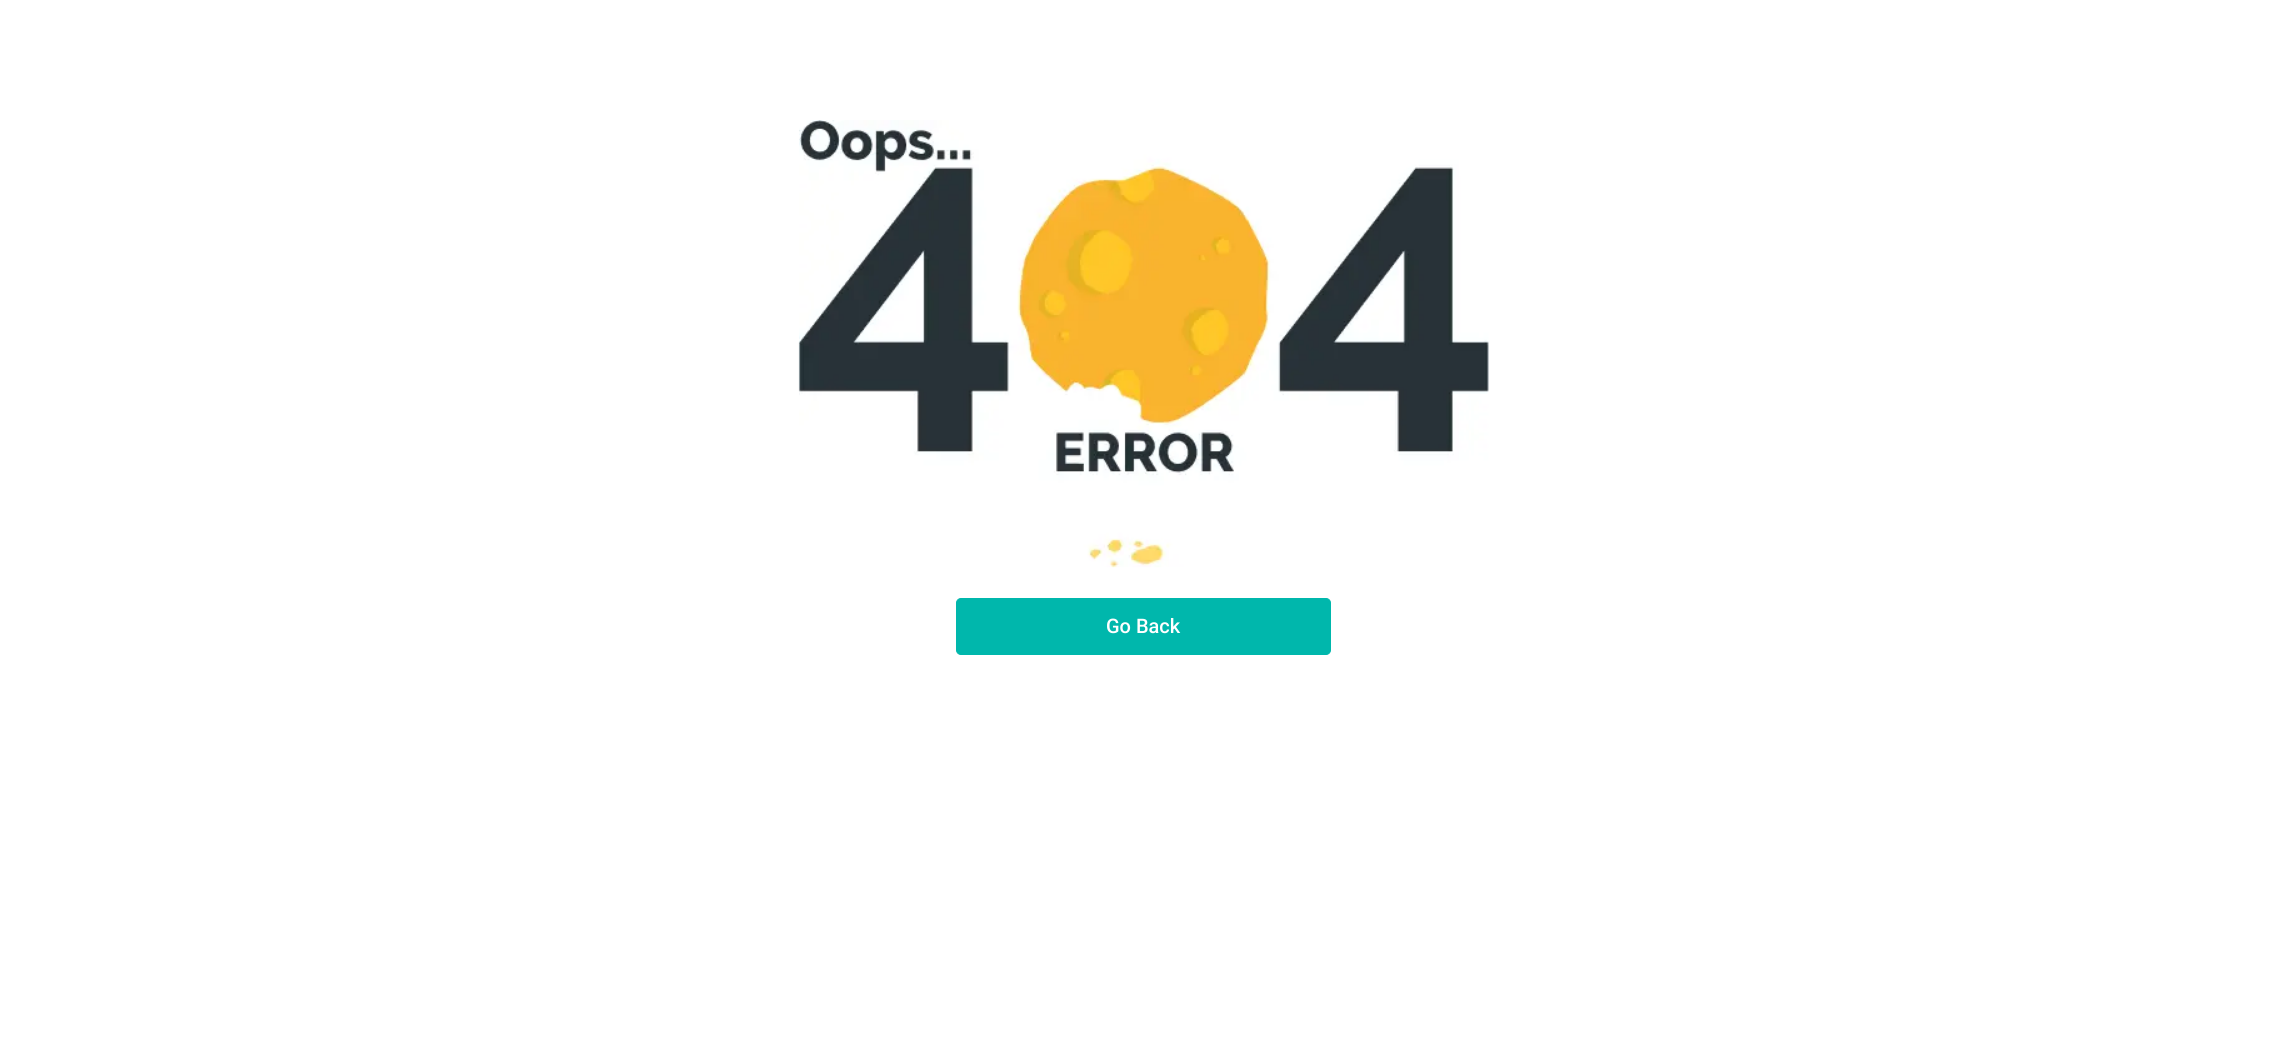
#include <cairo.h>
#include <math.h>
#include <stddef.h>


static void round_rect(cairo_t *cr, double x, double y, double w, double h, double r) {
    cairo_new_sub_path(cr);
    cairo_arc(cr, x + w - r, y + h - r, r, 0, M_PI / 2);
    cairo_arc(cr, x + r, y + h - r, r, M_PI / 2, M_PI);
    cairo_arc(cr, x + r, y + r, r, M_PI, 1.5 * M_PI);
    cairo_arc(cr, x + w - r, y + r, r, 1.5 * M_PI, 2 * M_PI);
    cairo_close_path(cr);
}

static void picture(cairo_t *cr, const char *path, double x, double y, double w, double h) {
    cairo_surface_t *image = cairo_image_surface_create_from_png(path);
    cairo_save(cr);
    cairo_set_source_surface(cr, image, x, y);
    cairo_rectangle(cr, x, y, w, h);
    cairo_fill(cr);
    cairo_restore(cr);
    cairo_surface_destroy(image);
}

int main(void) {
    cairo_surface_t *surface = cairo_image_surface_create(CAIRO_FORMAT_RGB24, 2286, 1058);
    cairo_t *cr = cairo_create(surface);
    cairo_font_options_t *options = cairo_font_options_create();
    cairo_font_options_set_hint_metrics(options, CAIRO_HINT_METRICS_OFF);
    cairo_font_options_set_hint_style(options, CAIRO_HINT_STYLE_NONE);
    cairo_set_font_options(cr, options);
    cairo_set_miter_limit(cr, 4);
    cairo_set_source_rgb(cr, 1, 1, 1);
    cairo_paint(cr);
    picture(cr, "img1.png", 798, 120, 691, 448);
    cairo_set_source_rgb(cr, 0, 0.718, 0.675);
    round_rect(cr, 956.5, 598.5, 374, 56, 4.5);
    cairo_fill_preserve(cr);
    cairo_set_line_width(cr, 1);
    cairo_stroke(cr);
    cairo_select_font_face(cr, "Roboto Medium", CAIRO_FONT_SLANT_NORMAL, CAIRO_FONT_WEIGHT_NORMAL);
    cairo_set_font_size(cr, 20);
    cairo_set_source_rgb(cr, 1, 1, 1);
    cairo_move_to(cr, 1106, 633);
    cairo_show_text(cr, "Go Back");
    cairo_surface_write_to_png(surface, "page.png");
    cairo_font_options_destroy(options);
    cairo_destroy(cr);
    cairo_surface_destroy(surface);
    return 0;
}
